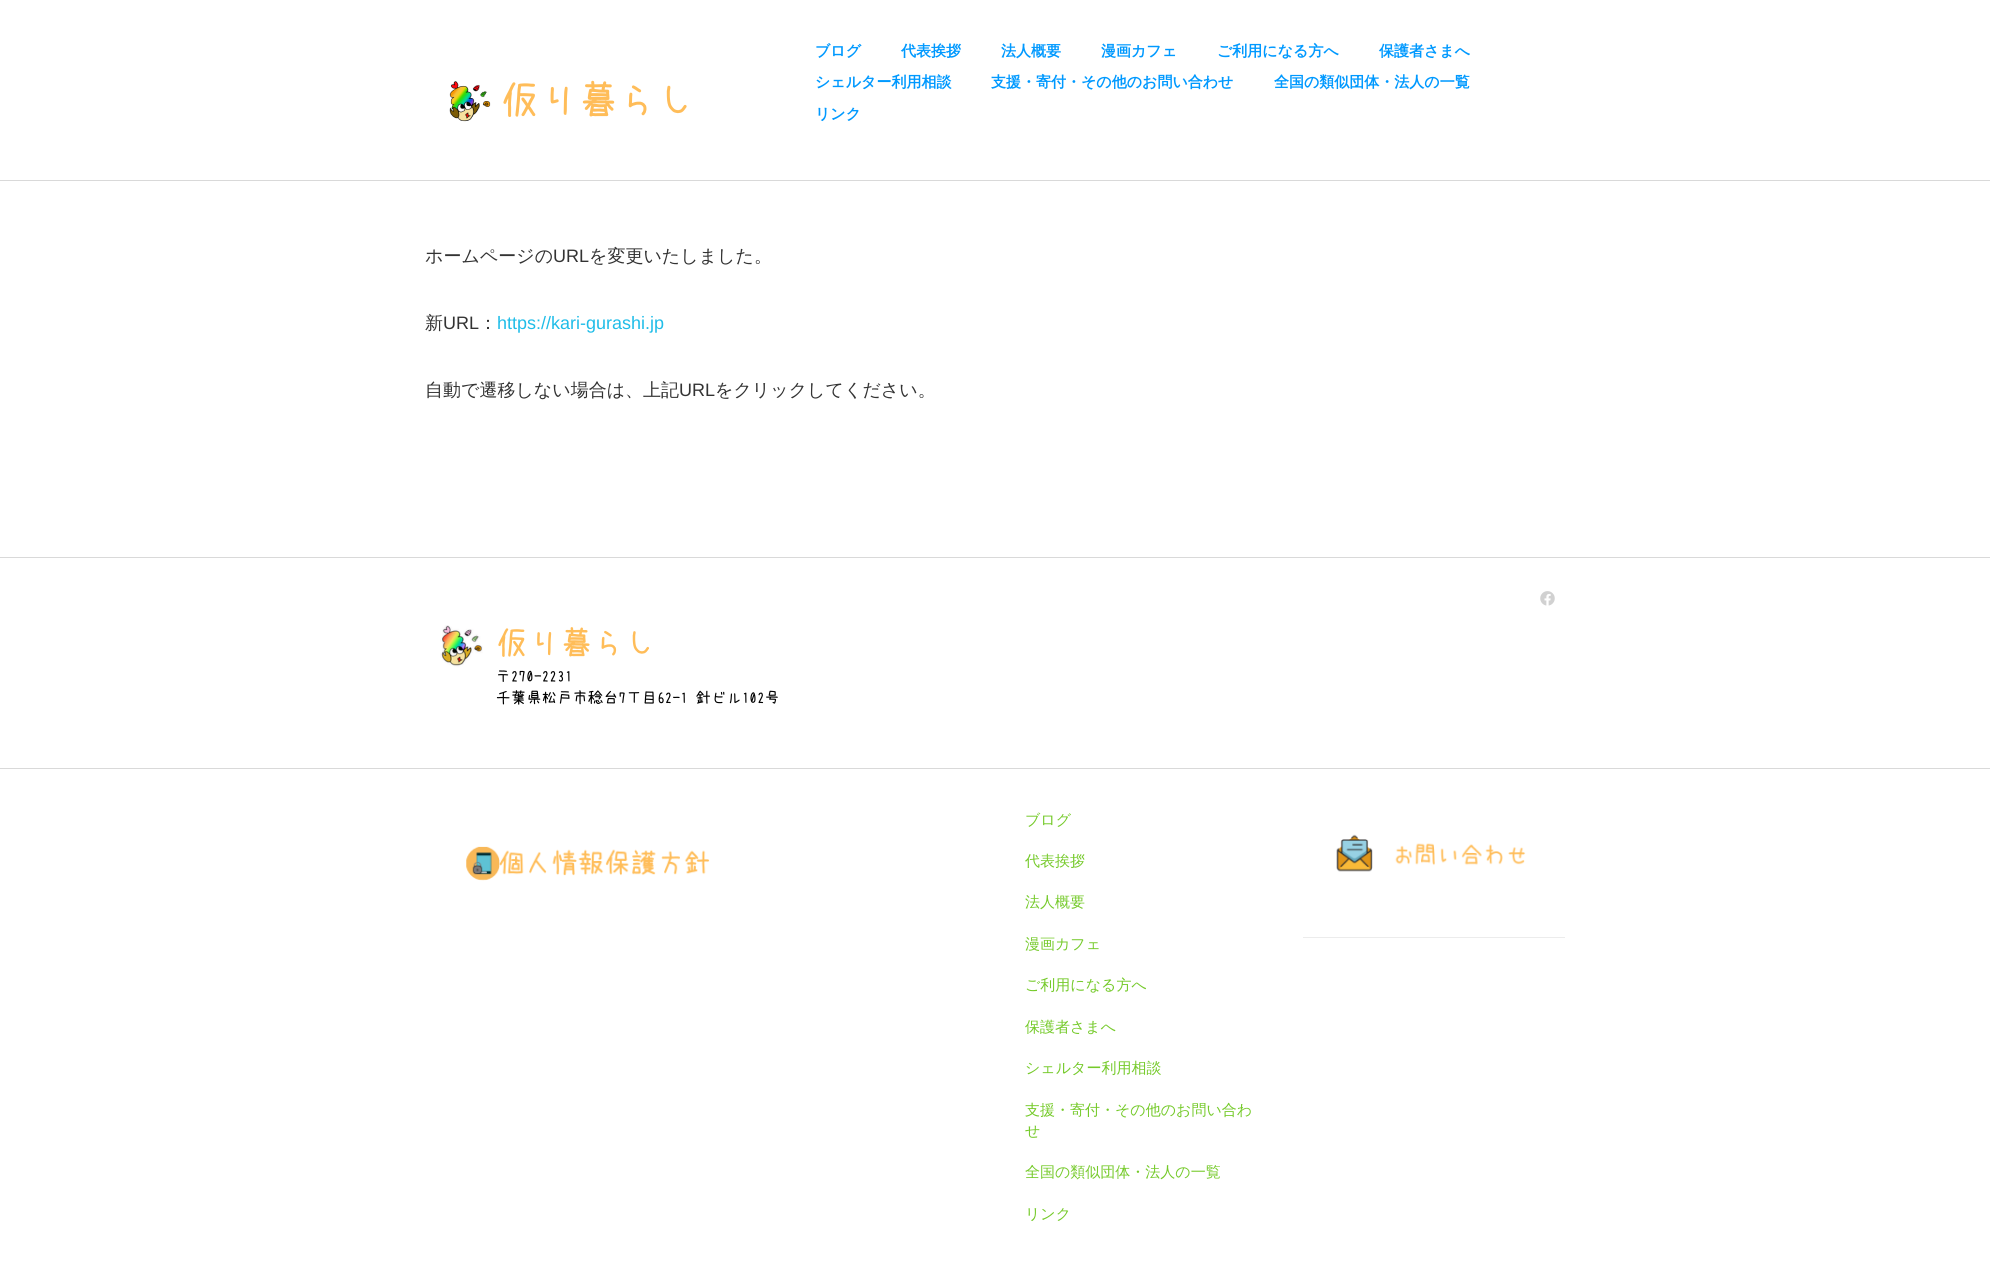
#include <cairo.h>
#include <math.h>
#include <stddef.h>


static void picture(cairo_t *cr, const char *path, double x, double y, double w, double h) {
    cairo_surface_t *image = cairo_image_surface_create_from_png(path);
    cairo_save(cr);
    cairo_set_source_surface(cr, image, x, y);
    cairo_rectangle(cr, x, y, w, h);
    cairo_fill(cr);
    cairo_restore(cr);
    cairo_surface_destroy(image);
}

int main(void) {
    cairo_surface_t *surface = cairo_image_surface_create(CAIRO_FORMAT_RGB24, 1990, 1263);
    cairo_t *cr = cairo_create(surface);
    cairo_font_options_t *options = cairo_font_options_create();
    cairo_font_options_set_hint_metrics(options, CAIRO_HINT_METRICS_OFF);
    cairo_font_options_set_hint_style(options, CAIRO_HINT_STYLE_NONE);
    cairo_set_font_options(cr, options);
    cairo_set_miter_limit(cr, 4);
    cairo_set_source_rgb(cr, 1, 1, 1);
    cairo_paint(cr);
    cairo_set_source_rgb(cr, 0.851, 0.851, 0.851);
    cairo_rectangle(cr, 0, 180, 1990, 1);
    cairo_fill(cr);
    picture(cr, "img1.png", 449, 80, 238, 42);
    cairo_select_font_face(cr, "WenQuanYi Zen Hei", CAIRO_FONT_SLANT_NORMAL, CAIRO_FONT_WEIGHT_BOLD);
    cairo_set_font_size(cr, 15);
    cairo_set_source_rgb(cr, 0, 0.6, 1);
    cairo_move_to(cr, 815, 56);
    cairo_show_text(cr, "ブログ");
    cairo_move_to(cr, 901, 56);
    cairo_show_text(cr, "代表挨拶");
    cairo_move_to(cr, 1001, 56);
    cairo_show_text(cr, "法人概要");
    cairo_move_to(cr, 1101, 56);
    cairo_show_text(cr, "漫画カフェ");
    cairo_move_to(cr, 1217, 56);
    cairo_show_text(cr, "ご利用になる方へ");
    cairo_move_to(cr, 1379, 56);
    cairo_show_text(cr, "保護者さまへ");
    cairo_move_to(cr, 815, 87);
    cairo_show_text(cr, "シェルター利用相談");
    cairo_move_to(cr, 991, 87);
    cairo_show_text(cr, "支援・寄付・その他のお問い合わせ");
    cairo_move_to(cr, 1274, 87);
    cairo_show_text(cr, "全国の類似団体・法人の一覧");
    cairo_move_to(cr, 815, 119);
    cairo_show_text(cr, "リンク");
    cairo_select_font_face(cr, "WenQuanYi Zen Hei Medium", CAIRO_FONT_SLANT_NORMAL, CAIRO_FONT_WEIGHT_NORMAL);
    cairo_set_font_size(cr, 18);
    cairo_set_source_rgb(cr, 0.2, 0.2, 0.2);
    cairo_move_to(cr, 425, 262);
    cairo_show_text(cr, "ホームページの");
    cairo_select_font_face(cr, "Liberation Sans", CAIRO_FONT_SLANT_NORMAL, CAIRO_FONT_WEIGHT_NORMAL);
    cairo_move_to(cr, 553, 262);
    cairo_show_text(cr, "URL");
    cairo_select_font_face(cr, "WenQuanYi Zen Hei Medium", CAIRO_FONT_SLANT_NORMAL, CAIRO_FONT_WEIGHT_NORMAL);
    cairo_move_to(cr, 589, 262);
    cairo_show_text(cr, "を変更いたしました。");
    cairo_move_to(cr, 425, 329);
    cairo_show_text(cr, "新");
    cairo_select_font_face(cr, "Liberation Sans", CAIRO_FONT_SLANT_NORMAL, CAIRO_FONT_WEIGHT_NORMAL);
    cairo_move_to(cr, 443, 329);
    cairo_show_text(cr, "URL");
    cairo_select_font_face(cr, "WenQuanYi Zen Hei Medium", CAIRO_FONT_SLANT_NORMAL, CAIRO_FONT_WEIGHT_NORMAL);
    cairo_move_to(cr, 479, 329);
    cairo_show_text(cr, "：");
    cairo_select_font_face(cr, "Liberation Sans", CAIRO_FONT_SLANT_NORMAL, CAIRO_FONT_WEIGHT_NORMAL);
    cairo_set_source_rgb(cr, 0.125, 0.741, 0.91);
    cairo_move_to(cr, 497, 329);
    cairo_show_text(cr, "https://kari-gurashi.jp");
    cairo_select_font_face(cr, "WenQuanYi Zen Hei Medium", CAIRO_FONT_SLANT_NORMAL, CAIRO_FONT_WEIGHT_NORMAL);
    cairo_set_source_rgb(cr, 0.2, 0.2, 0.2);
    cairo_move_to(cr, 425, 396);
    cairo_show_text(cr, "自動で遷移しない場合は、上記");
    cairo_select_font_face(cr, "Liberation Sans", CAIRO_FONT_SLANT_NORMAL, CAIRO_FONT_WEIGHT_NORMAL);
    cairo_move_to(cr, 679, 396);
    cairo_show_text(cr, "URL");
    cairo_select_font_face(cr, "WenQuanYi Zen Hei Medium", CAIRO_FONT_SLANT_NORMAL, CAIRO_FONT_WEIGHT_NORMAL);
    cairo_move_to(cr, 715, 396);
    cairo_show_text(cr, "をクリックしてください。");
    cairo_set_source_rgb(cr, 0.851, 0.851, 0.851);
    cairo_rectangle(cr, 0, 557, 1990, 1);
    cairo_fill(cr);
    picture(cr, "img2.png", 1540, 591, 15, 15);
    picture(cr, "img3.png", 440, 625, 338, 80);
    cairo_rectangle(cr, 0, 768, 1990, 1);
    cairo_fill(cr);
    picture(cr, "img4.png", 466, 846, 244, 35);
    cairo_set_font_size(cr, 15);
    cairo_set_source_rgb(cr, 0.459, 0.792, 0.165);
    cairo_move_to(cr, 1025, 825);
    cairo_show_text(cr, "ブログ");
    cairo_move_to(cr, 1025, 866);
    cairo_show_text(cr, "代表挨拶");
    cairo_move_to(cr, 1025, 907);
    cairo_show_text(cr, "法人概要");
    cairo_move_to(cr, 1025, 949);
    cairo_show_text(cr, "漫画カフェ");
    cairo_move_to(cr, 1025, 990);
    cairo_show_text(cr, "ご利用になる方へ");
    cairo_move_to(cr, 1025, 1032);
    cairo_show_text(cr, "保護者さまへ");
    cairo_move_to(cr, 1025, 1073);
    cairo_show_text(cr, "シェルター利用相談");
    cairo_move_to(cr, 1025, 1115);
    cairo_show_text(cr, "支援・寄付・その他のお問い合わ");
    cairo_move_to(cr, 1025, 1136);
    cairo_show_text(cr, "せ");
    cairo_move_to(cr, 1025, 1177);
    cairo_show_text(cr, "全国の類似団体・法人の一覧");
    cairo_move_to(cr, 1025, 1219);
    cairo_show_text(cr, "リンク");
    picture(cr, "img5.png", 1336, 834, 190, 38);
    cairo_set_source_rgb(cr, 0.925, 0.925, 0.925);
    cairo_rectangle(cr, 1303, 937, 262, 1);
    cairo_fill(cr);
    cairo_surface_write_to_png(surface, "page.png");
    cairo_font_options_destroy(options);
    cairo_destroy(cr);
    cairo_surface_destroy(surface);
    return 0;
}
